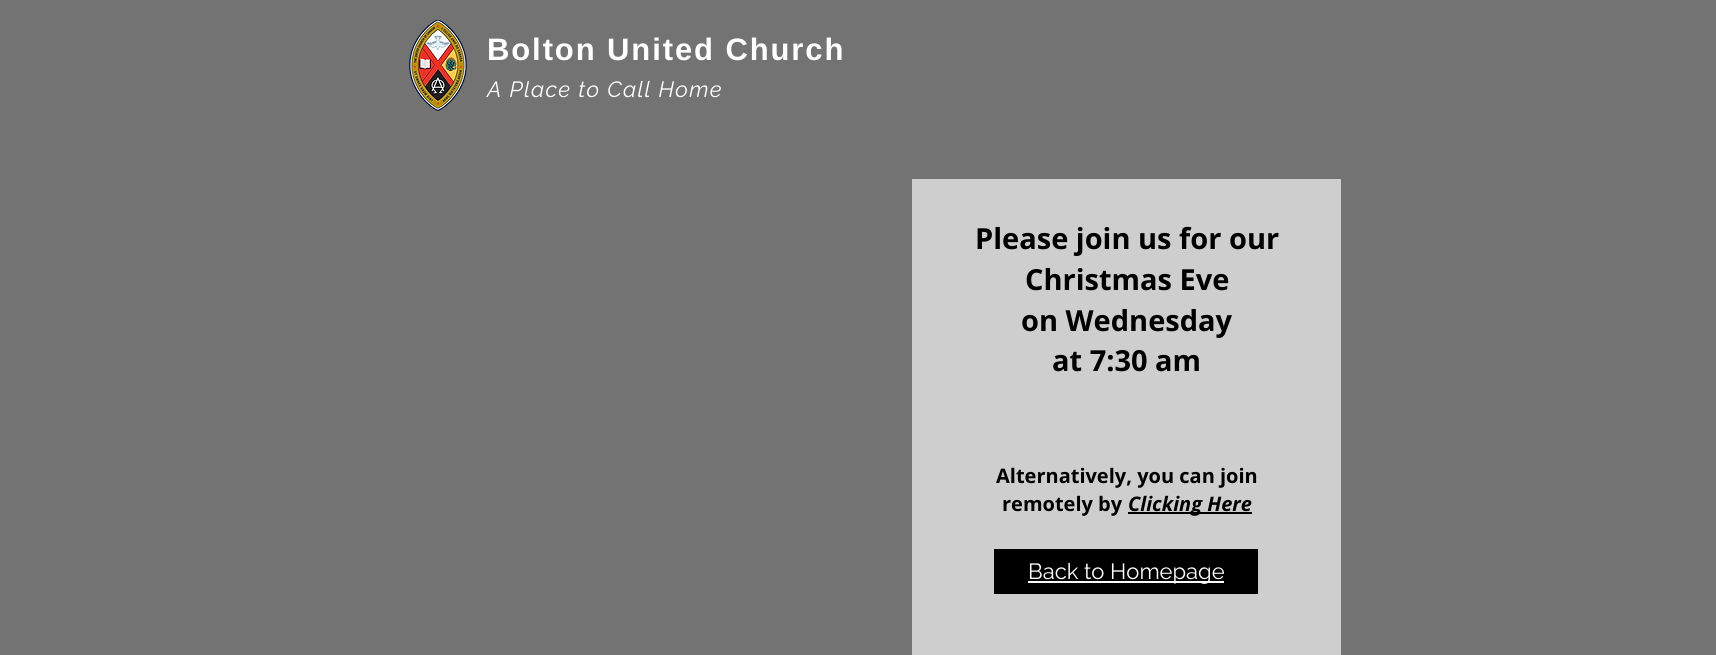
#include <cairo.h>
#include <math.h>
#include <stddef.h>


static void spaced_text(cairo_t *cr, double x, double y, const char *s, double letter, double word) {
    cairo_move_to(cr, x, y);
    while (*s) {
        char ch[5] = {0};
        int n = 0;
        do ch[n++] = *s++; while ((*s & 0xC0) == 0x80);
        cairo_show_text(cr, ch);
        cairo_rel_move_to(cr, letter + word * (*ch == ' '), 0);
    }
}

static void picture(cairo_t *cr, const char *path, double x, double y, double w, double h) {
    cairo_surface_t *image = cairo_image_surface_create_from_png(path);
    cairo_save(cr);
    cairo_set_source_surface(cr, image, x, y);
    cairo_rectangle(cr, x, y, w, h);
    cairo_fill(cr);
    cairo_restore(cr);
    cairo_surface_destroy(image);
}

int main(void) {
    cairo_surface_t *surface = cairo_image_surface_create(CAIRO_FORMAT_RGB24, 1716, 655);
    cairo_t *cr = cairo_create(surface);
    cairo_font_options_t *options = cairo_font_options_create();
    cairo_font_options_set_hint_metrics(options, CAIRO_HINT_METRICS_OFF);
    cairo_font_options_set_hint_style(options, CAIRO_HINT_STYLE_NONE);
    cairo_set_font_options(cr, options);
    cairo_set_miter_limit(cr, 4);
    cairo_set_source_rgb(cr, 0.451, 0.451, 0.451);
    cairo_paint(cr);
    picture(cr, "img1.png", 409, 20, 58, 91);
    cairo_select_font_face(cr, "Liberation Sans", CAIRO_FONT_SLANT_NORMAL, CAIRO_FONT_WEIGHT_BOLD);
    cairo_set_font_size(cr, 31);
    cairo_set_source_rgb(cr, 1, 1, 1);
    spaced_text(cr, 487, 60, "Bolton United Church", 1.9, 0);
    cairo_select_font_face(cr, "Raleway", CAIRO_FONT_SLANT_ITALIC, CAIRO_FONT_WEIGHT_NORMAL);
    cairo_set_font_size(cr, 22);
    spaced_text(cr, 487, 97, "A Place to Call Home", 1.3, 0);
    cairo_set_source_rgb(cr, 0.808, 0.808, 0.808);
    cairo_rectangle(cr, 912, 179, 429, 476);
    cairo_fill(cr);
    cairo_select_font_face(cr, "Open Sans", CAIRO_FONT_SLANT_NORMAL, CAIRO_FONT_WEIGHT_BOLD);
    cairo_set_font_size(cr, 29);
    cairo_set_source_rgb(cr, 0, 0, 0);
    cairo_move_to(cr, 975, 249);
    cairo_show_text(cr, "Please join us for our");
    cairo_move_to(cr, 1025, 290);
    cairo_show_text(cr, "Christmas Eve");
    cairo_move_to(cr, 1021, 331);
    cairo_show_text(cr, "on Wednesday");
    cairo_move_to(cr, 1052, 371);
    cairo_show_text(cr, "at 7:30 am");
    cairo_set_font_size(cr, 20);
    cairo_move_to(cr, 996, 483);
    cairo_show_text(cr, "Alternatively, you can join");
    cairo_move_to(cr, 1002, 511);
    cairo_show_text(cr, "remotely by");
    cairo_rectangle(cr, 1128, 512, 124, 2);
    cairo_fill(cr);
    cairo_select_font_face(cr, "Open Sans", CAIRO_FONT_SLANT_ITALIC, CAIRO_FONT_WEIGHT_BOLD);
    cairo_move_to(cr, 1128, 511);
    cairo_show_text(cr, "Clicking Here");
    cairo_rectangle(cr, 994, 549, 264, 45);
    cairo_fill(cr);
    cairo_set_source_rgb(cr, 1, 1, 1);
    cairo_rectangle(cr, 1028, 581, 196, 2);
    cairo_fill(cr);
    cairo_select_font_face(cr, "Raleway", CAIRO_FONT_SLANT_NORMAL, CAIRO_FONT_WEIGHT_NORMAL);
    cairo_set_font_size(cr, 22);
    cairo_move_to(cr, 1028, 579);
    cairo_show_text(cr, "Back to Homepage");
    cairo_surface_write_to_png(surface, "page.png");
    cairo_font_options_destroy(options);
    cairo_destroy(cr);
    cairo_surface_destroy(surface);
    return 0;
}
